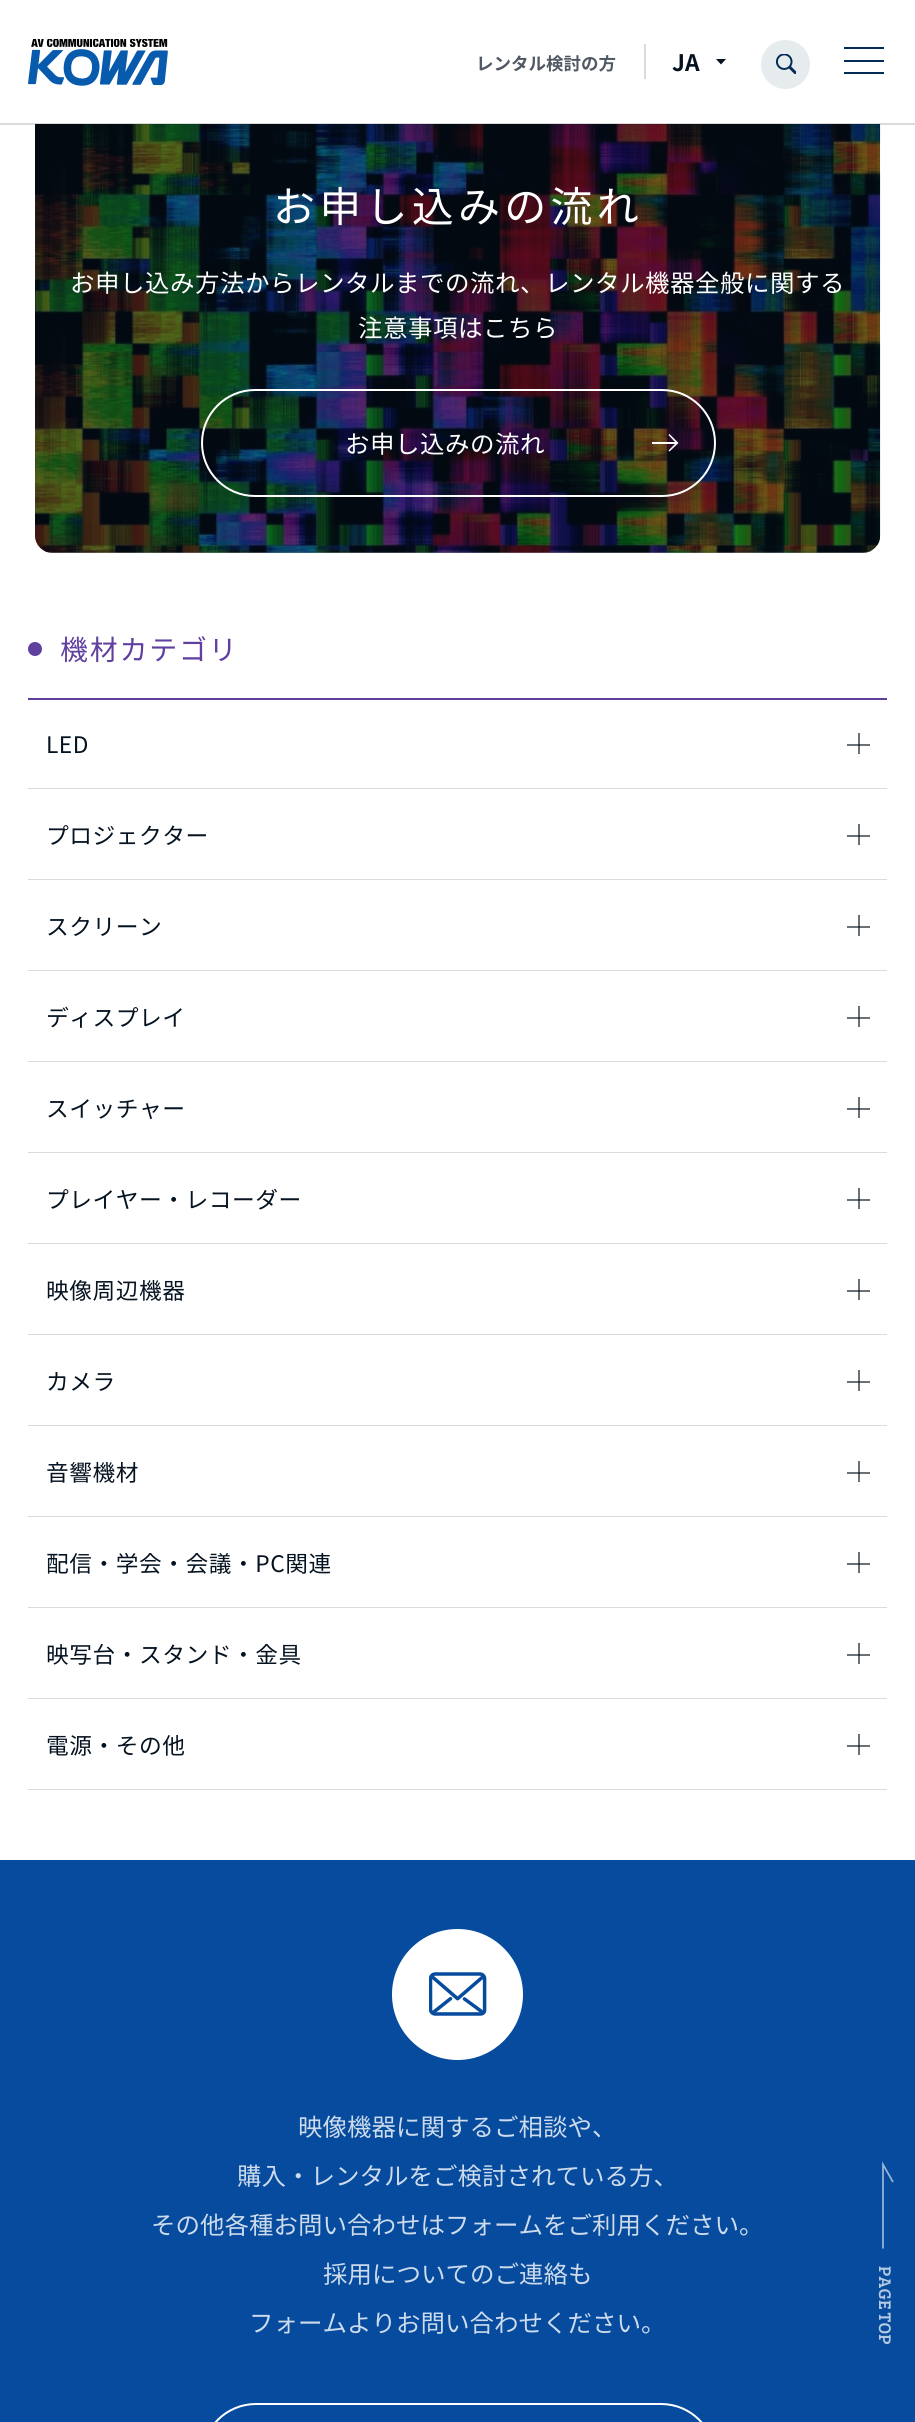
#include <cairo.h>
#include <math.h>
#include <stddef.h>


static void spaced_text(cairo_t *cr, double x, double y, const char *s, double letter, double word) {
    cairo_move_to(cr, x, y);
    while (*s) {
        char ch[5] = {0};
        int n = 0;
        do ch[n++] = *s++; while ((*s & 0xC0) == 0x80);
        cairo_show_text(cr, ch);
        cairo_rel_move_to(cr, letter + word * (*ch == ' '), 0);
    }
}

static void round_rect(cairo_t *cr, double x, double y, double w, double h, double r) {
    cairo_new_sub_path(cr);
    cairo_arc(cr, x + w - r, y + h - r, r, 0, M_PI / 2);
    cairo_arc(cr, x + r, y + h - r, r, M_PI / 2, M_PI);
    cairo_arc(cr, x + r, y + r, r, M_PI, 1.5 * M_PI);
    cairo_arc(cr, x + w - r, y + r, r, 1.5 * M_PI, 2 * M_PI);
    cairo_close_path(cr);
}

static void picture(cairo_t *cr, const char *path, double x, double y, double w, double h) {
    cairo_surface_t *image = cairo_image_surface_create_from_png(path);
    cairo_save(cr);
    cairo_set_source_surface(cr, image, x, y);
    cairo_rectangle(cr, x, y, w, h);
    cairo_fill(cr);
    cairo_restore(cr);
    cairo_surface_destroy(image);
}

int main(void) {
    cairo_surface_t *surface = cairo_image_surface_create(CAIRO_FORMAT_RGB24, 915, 2422);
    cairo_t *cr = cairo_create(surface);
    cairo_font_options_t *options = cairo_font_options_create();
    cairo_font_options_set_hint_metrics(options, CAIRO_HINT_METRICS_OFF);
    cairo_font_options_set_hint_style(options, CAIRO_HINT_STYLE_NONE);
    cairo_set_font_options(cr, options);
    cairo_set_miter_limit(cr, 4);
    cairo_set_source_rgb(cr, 1, 1, 1);
    cairo_paint(cr);
    cairo_set_source_rgb(cr, 0.412, 0.443, 0.475);
    cairo_rectangle(cr, 847, 1745, 23, 2);
    cairo_fill(cr);
    cairo_rectangle(cr, 847, 1654, 23, 2);
    cairo_fill(cr);
    cairo_rectangle(cr, 847, 1563, 23, 2);
    cairo_fill(cr);
    cairo_rectangle(cr, 847, 1472, 23, 2);
    cairo_fill(cr);
    cairo_rectangle(cr, 847, 1381, 23, 2);
    cairo_fill(cr);
    cairo_rectangle(cr, 847, 1290, 23, 2);
    cairo_fill(cr);
    cairo_rectangle(cr, 847, 1199, 23, 2);
    cairo_fill(cr);
    cairo_rectangle(cr, 847, 1108, 23, 2);
    cairo_fill(cr);
    cairo_rectangle(cr, 847, 1017, 23, 2);
    cairo_fill(cr);
    cairo_rectangle(cr, 847, 926, 23, 2);
    cairo_fill(cr);
    cairo_rectangle(cr, 847, 835, 23, 2);
    cairo_fill(cr);
    cairo_rectangle(cr, 847, 744, 23, 2);
    cairo_fill(cr);
    picture(cr, "img3.png", 35, 124, 846, 429);
    cairo_set_source_rgba(cr, 0.02, 0.071, 0.125, 0.55);
    round_rect(cr, 35, 109, 845, 444, 18);
    cairo_fill(cr);
    cairo_set_source_rgb(cr, 1, 1, 1);
    cairo_rectangle(cr, 35, 109, 845, 15);
    cairo_fill(cr);
    cairo_set_source_rgba(cr, 0.02, 0.071, 0.125, 0.15);
    cairo_rectangle(cr, 0, 123, 915, 2);
    cairo_fill(cr);
    picture(cr, "img1.png", 28, 39, 140, 47);
    cairo_select_font_face(cr, "Noto Sans JP", CAIRO_FONT_SLANT_NORMAL, CAIRO_FONT_WEIGHT_BOLD);
    cairo_set_font_size(cr, 17.5);
    cairo_set_source_rgb(cr, 0.314, 0.349, 0.388);
    cairo_move_to(cr, 476, 70);
    cairo_show_text(cr, "レンタル検討の方");
    cairo_set_source_rgb(cr, 0.855, 0.859, 0.871);
    cairo_rectangle(cr, 644, 44, 2, 35);
    cairo_fill(cr);
    cairo_set_font_size(cr, 22.75);
    cairo_set_source_rgb(cr, 0.02, 0.071, 0.125);
    cairo_move_to(cr, 672, 71);
    cairo_show_text(cr, "JA");
    cairo_new_path(cr);
    cairo_move_to(cr, 716, 59);
    cairo_line_to(cr, 721, 64.5);
    cairo_line_to(cr, 726, 59);
    cairo_close_path(cr);
    cairo_fill(cr);
    cairo_set_source_rgb(cr, 0.902, 0.918, 0.933);
    cairo_arc(cr, 785.5, 64.5, 24.5, 0, 2 * M_PI);
    cairo_fill(cr);
    picture(cr, "img2.png", 775, 54, 21, 20);
    cairo_set_source_rgb(cr, 0.008, 0.173, 0.333);
    cairo_rectangle(cr, 844, 47, 40, 2);
    cairo_fill(cr);
    cairo_rectangle(cr, 844, 60, 40, 2);
    cairo_fill(cr);
    cairo_rectangle(cr, 844, 72, 40, 2);
    cairo_fill(cr);
    cairo_select_font_face(cr, "Noto Sans JP", CAIRO_FONT_SLANT_NORMAL, CAIRO_FONT_WEIGHT_NORMAL);
    cairo_set_font_size(cr, 42);
    cairo_set_source_rgb(cr, 1, 1, 1);
    spaced_text(cr, 273, 222, "お申し込みの流れ", 4.25, 0);
    cairo_set_font_size(cr, 24.5);
    spaced_text(cr, 70, 292, "お申し込み方法からレンタルまでの流れ、レンタル機器全般に関する", 0.5, 0);
    spaced_text(cr, 358, 337, "注意事項はこちら", 0.5, 0);
    round_rect(cr, 202, 390, 513, 106, 53);
    cairo_stroke(cr);
    spaced_text(cr, 345, 453, "お申し込みの流れ", 0.5, 0);
    cairo_rectangle(cr, 652, 442, 24, 2);
    cairo_fill(cr);
    cairo_new_path(cr);
    cairo_move_to(cr, 669.5, 434);
    cairo_line_to(cr, 668.5, 435);
    cairo_line_to(cr, 676, 443);
    cairo_line_to(cr, 668.5, 450.5);
    cairo_line_to(cr, 669.5, 451.5);
    cairo_line_to(cr, 678.5, 443);
    cairo_close_path(cr);
    cairo_fill(cr);
    cairo_set_source_rgb(cr, 0.373, 0.251, 0.624);
    cairo_rectangle(cr, 28, 698, 859, 2);
    cairo_fill(cr);
    cairo_arc(cr, 35, 649, 7, 0, 2 * M_PI);
    cairo_fill(cr);
    cairo_set_font_size(cr, 28);
    spaced_text(cr, 60, 660, "機材カテゴリ", 1.75, 0);
    cairo_set_source_rgb(cr, 0.855, 0.859, 0.871);
    cairo_rectangle(cr, 28, 788, 859, 1);
    cairo_fill(cr);
    cairo_set_font_size(cr, 22.75);
    cairo_set_source_rgb(cr, 0.02, 0.071, 0.125);
    spaced_text(cr, 46, 753, "LED", 0.5, 0);
    cairo_set_source_rgb(cr, 0.412, 0.443, 0.475);
    cairo_rectangle(cr, 858, 733, 2, 21);
    cairo_fill(cr);
    cairo_set_source_rgb(cr, 0.176, 0.22, 0.267);
    cairo_rectangle(cr, 858, 744, 2, 2);
    cairo_fill(cr);
    cairo_set_source_rgb(cr, 0.855, 0.859, 0.871);
    cairo_rectangle(cr, 28, 879, 859, 1);
    cairo_fill(cr);
    cairo_set_source_rgb(cr, 0.02, 0.071, 0.125);
    spaced_text(cr, 46, 844, "プロジェクター", 0.5, 0);
    cairo_set_source_rgb(cr, 0.412, 0.443, 0.475);
    cairo_rectangle(cr, 858, 824, 2, 21);
    cairo_fill(cr);
    cairo_set_source_rgb(cr, 0.176, 0.22, 0.267);
    cairo_rectangle(cr, 858, 835, 2, 2);
    cairo_fill(cr);
    cairo_set_source_rgb(cr, 0.855, 0.859, 0.871);
    cairo_rectangle(cr, 28, 970, 859, 1);
    cairo_fill(cr);
    cairo_set_source_rgb(cr, 0.02, 0.071, 0.125);
    spaced_text(cr, 46, 935, "スクリーン", 0.5, 0);
    cairo_set_source_rgb(cr, 0.412, 0.443, 0.475);
    cairo_rectangle(cr, 858, 915, 2, 21);
    cairo_fill(cr);
    cairo_set_source_rgb(cr, 0.176, 0.22, 0.267);
    cairo_rectangle(cr, 858, 926, 2, 2);
    cairo_fill(cr);
    cairo_set_source_rgb(cr, 0.855, 0.859, 0.871);
    cairo_rectangle(cr, 28, 1061, 859, 1);
    cairo_fill(cr);
    cairo_set_source_rgb(cr, 0.02, 0.071, 0.125);
    spaced_text(cr, 46, 1026, "ディスプレイ", 0.5, 0);
    cairo_set_source_rgb(cr, 0.412, 0.443, 0.475);
    cairo_rectangle(cr, 858, 1006, 2, 21);
    cairo_fill(cr);
    cairo_set_source_rgb(cr, 0.176, 0.22, 0.267);
    cairo_rectangle(cr, 858, 1017, 2, 2);
    cairo_fill(cr);
    cairo_set_source_rgb(cr, 0.855, 0.859, 0.871);
    cairo_rectangle(cr, 28, 1152, 859, 1);
    cairo_fill(cr);
    cairo_set_source_rgb(cr, 0.02, 0.071, 0.125);
    spaced_text(cr, 46, 1117, "スイッチャー", 0.5, 0);
    cairo_set_source_rgb(cr, 0.412, 0.443, 0.475);
    cairo_rectangle(cr, 858, 1097, 2, 21);
    cairo_fill(cr);
    cairo_set_source_rgb(cr, 0.176, 0.22, 0.267);
    cairo_rectangle(cr, 858, 1108, 2, 2);
    cairo_fill(cr);
    cairo_set_source_rgb(cr, 0.855, 0.859, 0.871);
    cairo_rectangle(cr, 28, 1243, 859, 1);
    cairo_fill(cr);
    cairo_set_source_rgb(cr, 0.02, 0.071, 0.125);
    spaced_text(cr, 46, 1208, "プレイヤー・レコーダー", 0.5, 0);
    cairo_set_source_rgb(cr, 0.412, 0.443, 0.475);
    cairo_rectangle(cr, 858, 1188, 2, 21);
    cairo_fill(cr);
    cairo_set_source_rgb(cr, 0.176, 0.22, 0.267);
    cairo_rectangle(cr, 858, 1199, 2, 2);
    cairo_fill(cr);
    cairo_set_source_rgb(cr, 0.855, 0.859, 0.871);
    cairo_rectangle(cr, 28, 1334, 859, 1);
    cairo_fill(cr);
    cairo_set_source_rgb(cr, 0.02, 0.071, 0.125);
    spaced_text(cr, 46, 1299, "映像周辺機器", 0.5, 0);
    cairo_set_source_rgb(cr, 0.412, 0.443, 0.475);
    cairo_rectangle(cr, 858, 1279, 2, 21);
    cairo_fill(cr);
    cairo_set_source_rgb(cr, 0.176, 0.22, 0.267);
    cairo_rectangle(cr, 858, 1290, 2, 2);
    cairo_fill(cr);
    cairo_set_source_rgb(cr, 0.855, 0.859, 0.871);
    cairo_rectangle(cr, 28, 1425, 859, 1);
    cairo_fill(cr);
    cairo_set_source_rgb(cr, 0.02, 0.071, 0.125);
    spaced_text(cr, 46, 1390, "カメラ", 0.5, 0);
    cairo_set_source_rgb(cr, 0.412, 0.443, 0.475);
    cairo_rectangle(cr, 858, 1370, 2, 21);
    cairo_fill(cr);
    cairo_set_source_rgb(cr, 0.176, 0.22, 0.267);
    cairo_rectangle(cr, 858, 1381, 2, 2);
    cairo_fill(cr);
    cairo_set_source_rgb(cr, 0.855, 0.859, 0.871);
    cairo_rectangle(cr, 28, 1516, 859, 1);
    cairo_fill(cr);
    cairo_set_source_rgb(cr, 0.02, 0.071, 0.125);
    spaced_text(cr, 46, 1481, "音響機材", 0.5, 0);
    cairo_set_source_rgb(cr, 0.412, 0.443, 0.475);
    cairo_rectangle(cr, 858, 1461, 2, 21);
    cairo_fill(cr);
    cairo_set_source_rgb(cr, 0.176, 0.22, 0.267);
    cairo_rectangle(cr, 858, 1472, 2, 2);
    cairo_fill(cr);
    cairo_set_source_rgb(cr, 0.855, 0.859, 0.871);
    cairo_rectangle(cr, 28, 1607, 859, 1);
    cairo_fill(cr);
    cairo_set_source_rgb(cr, 0.02, 0.071, 0.125);
    spaced_text(cr, 46, 1572, "配信・学会・会議・PC関連", 0.5, 0);
    cairo_set_source_rgb(cr, 0.412, 0.443, 0.475);
    cairo_rectangle(cr, 858, 1552, 2, 21);
    cairo_fill(cr);
    cairo_set_source_rgb(cr, 0.176, 0.22, 0.267);
    cairo_rectangle(cr, 858, 1563, 2, 2);
    cairo_fill(cr);
    cairo_set_source_rgb(cr, 0.855, 0.859, 0.871);
    cairo_rectangle(cr, 28, 1698, 859, 1);
    cairo_fill(cr);
    cairo_set_source_rgb(cr, 0.02, 0.071, 0.125);
    spaced_text(cr, 46, 1663, "映写台・スタンド・金具", 0.5, 0);
    cairo_set_source_rgb(cr, 0.412, 0.443, 0.475);
    cairo_rectangle(cr, 858, 1643, 2, 21);
    cairo_fill(cr);
    cairo_set_source_rgb(cr, 0.176, 0.22, 0.267);
    cairo_rectangle(cr, 858, 1654, 2, 2);
    cairo_fill(cr);
    cairo_set_source_rgb(cr, 0.855, 0.859, 0.871);
    cairo_rectangle(cr, 28, 1789, 859, 1);
    cairo_fill(cr);
    cairo_set_source_rgb(cr, 0.02, 0.071, 0.125);
    spaced_text(cr, 46, 1754, "電源・その他", 0.5, 0);
    cairo_set_source_rgb(cr, 0.412, 0.443, 0.475);
    cairo_rectangle(cr, 858, 1734, 2, 21);
    cairo_fill(cr);
    cairo_set_source_rgb(cr, 0.176, 0.22, 0.267);
    cairo_rectangle(cr, 858, 1745, 2, 2);
    cairo_fill(cr);
    cairo_set_source_rgb(cr, 0.024, 0.294, 0.62);
    cairo_rectangle(cr, 0, 1860, 915, 562);
    cairo_fill(cr);
    cairo_set_source_rgb(cr, 1, 1, 1);
    cairo_arc(cr, 457.5, 1994.5, 65.5, 0, 2 * M_PI);
    cairo_fill(cr);
    picture(cr, "img4.png", 429, 1972, 58, 44);
    cairo_set_font_size(cr, 24.5);
    cairo_set_source_rgb(cr, 0.804, 0.859, 0.925);
    cairo_move_to(cr, 298, 2136);
    cairo_show_text(cr, "映像機器に関するご相談や、");
    cairo_move_to(cr, 237, 2185);
    cairo_show_text(cr, "購入・レンタルをご検討されている方、");
    cairo_move_to(cr, 151, 2234);
    cairo_show_text(cr, "その他各種お問い合わせはフォームをご利用ください。");
    cairo_move_to(cr, 323, 2283);
    cairo_show_text(cr, "採用についてのご連絡も");
    cairo_move_to(cr, 249, 2332);
    cairo_show_text(cr, "フォームよりお問い合わせください。");
    round_rect(cr, 202, 2404, 513, 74, 54);
    cairo_set_source_rgb(cr, 1, 1, 1);
    cairo_stroke(cr);
    cairo_new_path(cr);
    cairo_move_to(cr, 883, 2248.5);
    cairo_line_to(cr, 883, 2164.5);
    cairo_line_to(cr, 893, 2182);
    cairo_set_source_rgb(cr, 0.608, 0.718, 0.847);
    cairo_set_line_width(cr, 1.7);
    cairo_stroke(cr);
    cairo_select_font_face(cr, "Bree Serif", CAIRO_FONT_SLANT_NORMAL, CAIRO_FONT_WEIGHT_NORMAL);
    cairo_set_font_size(cr, 17.5);
    cairo_set_source_rgb(cr, 0.706, 0.788, 0.886);
    cairo_save(cr);
    cairo_translate(cr, 879, 2266);
    cairo_rotate(cr, 90 * M_PI / 180);
    spaced_text(cr, 0, 0, "PAGE TOP", 0.25, -1);
    cairo_restore(cr);
    cairo_surface_write_to_png(surface, "page.png");
    cairo_font_options_destroy(options);
    cairo_destroy(cr);
    cairo_surface_destroy(surface);
    return 0;
}
